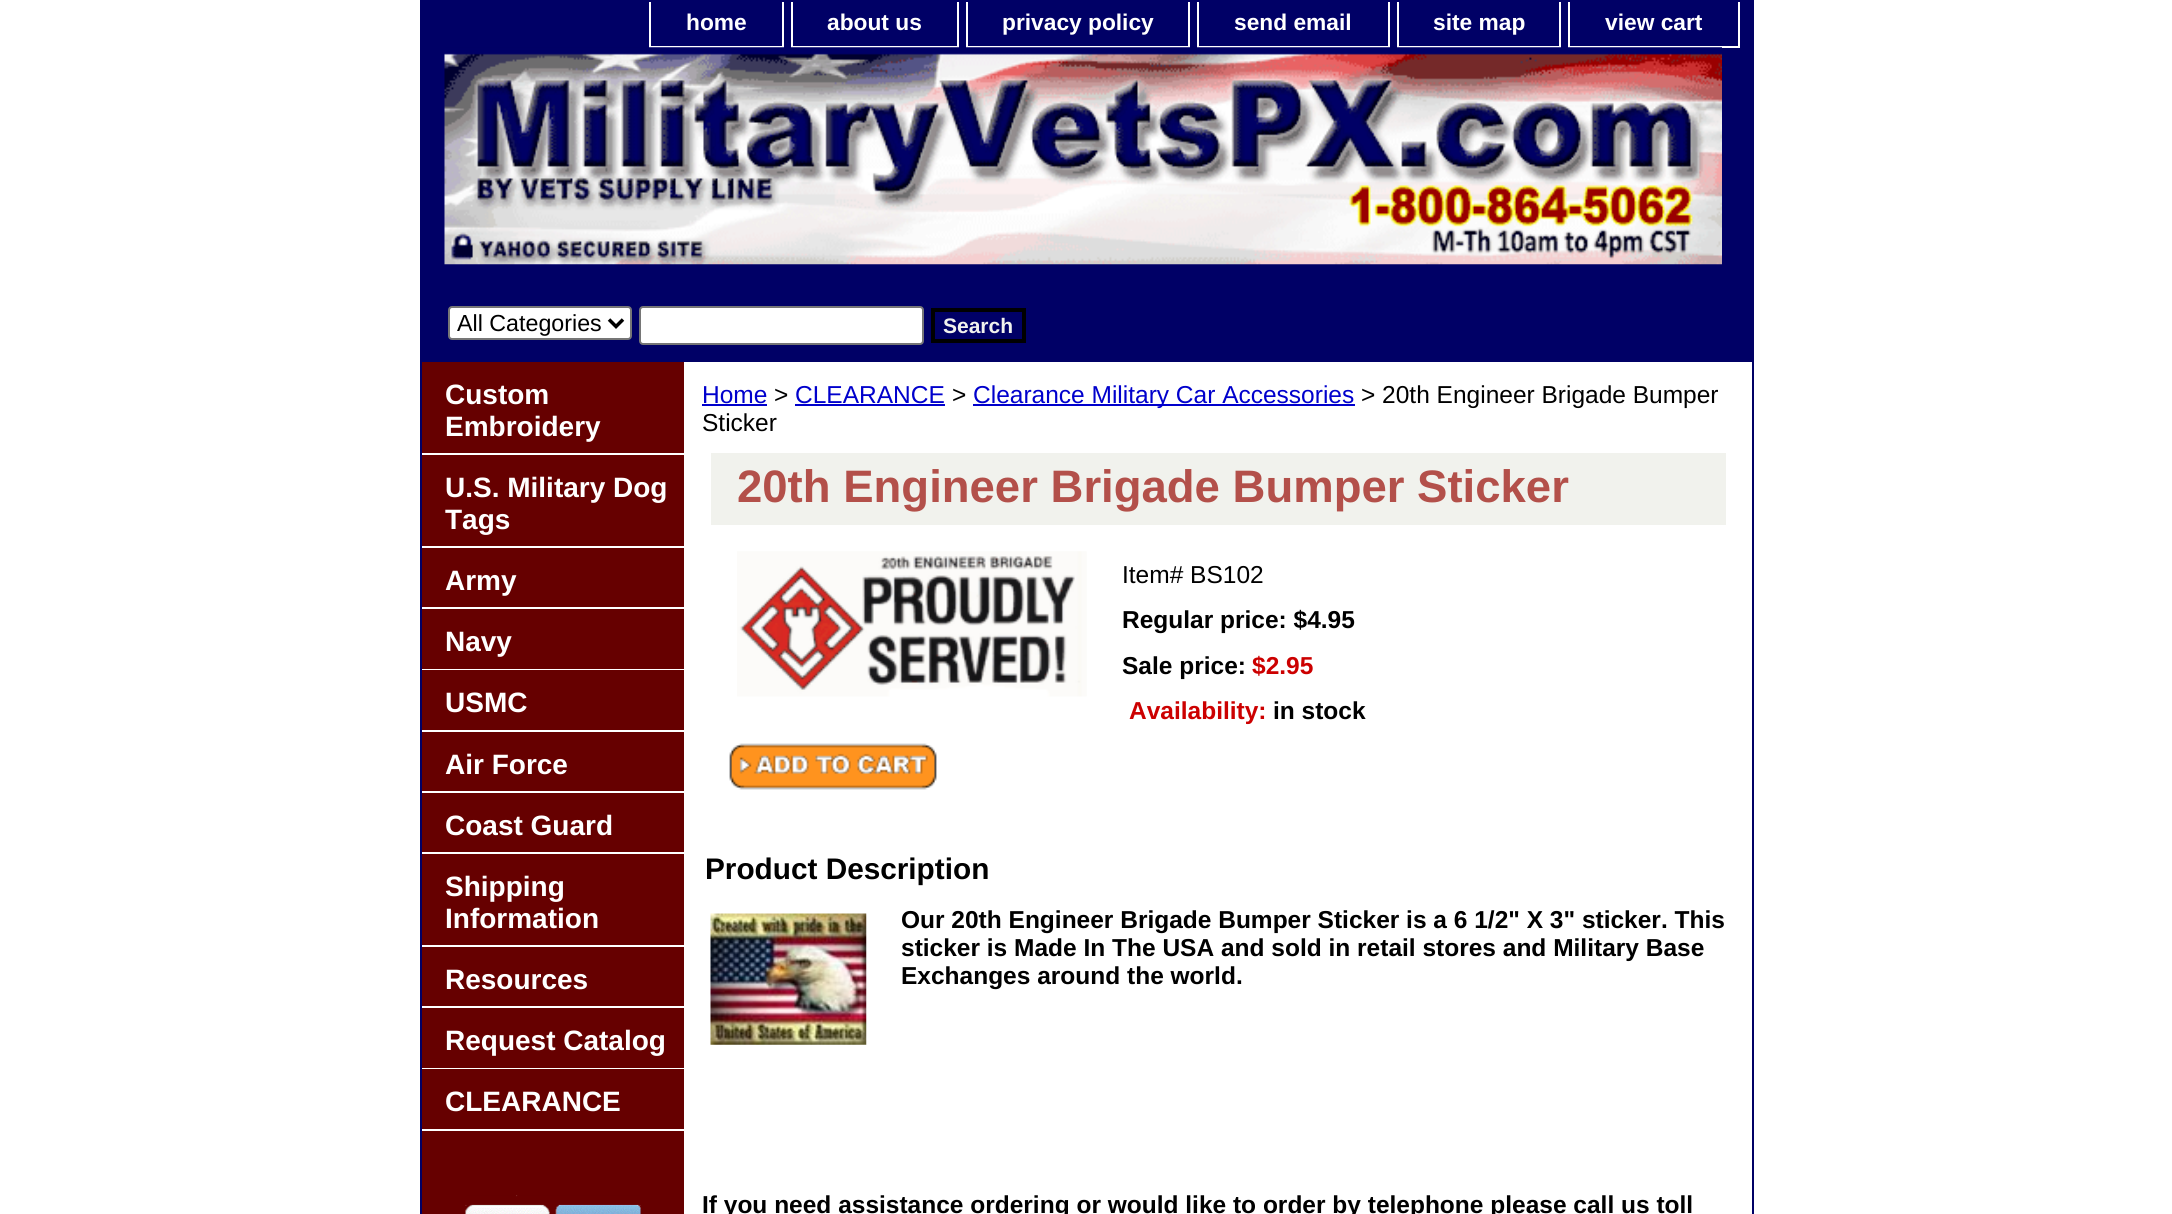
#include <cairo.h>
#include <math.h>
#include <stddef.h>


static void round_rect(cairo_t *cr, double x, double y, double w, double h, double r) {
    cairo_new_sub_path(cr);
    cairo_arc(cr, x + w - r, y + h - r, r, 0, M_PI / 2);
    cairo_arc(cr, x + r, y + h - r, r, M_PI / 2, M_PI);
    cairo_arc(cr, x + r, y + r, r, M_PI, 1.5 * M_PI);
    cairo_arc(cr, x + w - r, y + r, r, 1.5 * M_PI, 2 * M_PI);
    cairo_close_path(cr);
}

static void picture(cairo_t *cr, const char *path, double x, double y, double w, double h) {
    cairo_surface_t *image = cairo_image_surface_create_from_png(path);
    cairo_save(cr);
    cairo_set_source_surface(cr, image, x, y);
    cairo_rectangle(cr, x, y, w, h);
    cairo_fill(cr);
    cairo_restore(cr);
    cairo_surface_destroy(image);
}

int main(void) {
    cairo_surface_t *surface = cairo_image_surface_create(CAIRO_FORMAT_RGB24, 2172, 1214);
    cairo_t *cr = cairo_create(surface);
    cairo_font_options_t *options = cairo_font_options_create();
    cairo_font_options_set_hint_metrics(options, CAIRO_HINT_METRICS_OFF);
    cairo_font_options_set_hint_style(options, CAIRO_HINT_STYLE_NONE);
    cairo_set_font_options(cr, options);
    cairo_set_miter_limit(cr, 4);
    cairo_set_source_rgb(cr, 1, 1, 1);
    cairo_paint(cr);
    cairo_rectangle(cr, 421, 1, 1332, 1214);
    cairo_set_source_rgb(cr, 0, 0, 0.4);
    cairo_stroke(cr);
    cairo_rectangle(cr, 422, 2, 1330, 360);
    cairo_fill(cr);
    cairo_set_source_rgb(cr, 1, 1, 1);
    cairo_rectangle(cr, 782, 2, 2, 45);
    cairo_fill(cr);
    cairo_rectangle(cr, 649, 46, 135, 2);
    cairo_fill(cr);
    cairo_rectangle(cr, 649, 2, 2, 45);
    cairo_fill(cr);
    cairo_select_font_face(cr, "Liberation Sans", CAIRO_FONT_SLANT_NORMAL, CAIRO_FONT_WEIGHT_BOLD);
    cairo_set_font_size(cr, 22.75);
    cairo_move_to(cr, 686, 30);
    cairo_show_text(cr, "home");
    cairo_rectangle(cr, 957, 2, 2, 45);
    cairo_fill(cr);
    cairo_rectangle(cr, 791, 46, 168, 2);
    cairo_fill(cr);
    cairo_rectangle(cr, 791, 2, 2, 45);
    cairo_fill(cr);
    cairo_move_to(cr, 827, 30);
    cairo_show_text(cr, "about us");
    cairo_rectangle(cr, 1188, 2, 2, 45);
    cairo_fill(cr);
    cairo_rectangle(cr, 966, 46, 224, 2);
    cairo_fill(cr);
    cairo_rectangle(cr, 966, 2, 2, 45);
    cairo_fill(cr);
    cairo_move_to(cr, 1002, 30);
    cairo_show_text(cr, "privacy policy");
    cairo_rectangle(cr, 1388, 2, 2, 45);
    cairo_fill(cr);
    cairo_rectangle(cr, 1197, 46, 193, 2);
    cairo_fill(cr);
    cairo_rectangle(cr, 1197, 2, 2, 45);
    cairo_fill(cr);
    cairo_move_to(cr, 1234, 30);
    cairo_show_text(cr, "send email");
    cairo_rectangle(cr, 1559, 2, 2, 45);
    cairo_fill(cr);
    cairo_rectangle(cr, 1397, 46, 164, 2);
    cairo_fill(cr);
    cairo_rectangle(cr, 1397, 2, 2, 45);
    cairo_fill(cr);
    cairo_move_to(cr, 1433, 30);
    cairo_show_text(cr, "site map");
    cairo_rectangle(cr, 1738, 2, 2, 45);
    cairo_fill(cr);
    cairo_rectangle(cr, 1568, 46, 172, 2);
    cairo_fill(cr);
    cairo_rectangle(cr, 1568, 2, 2, 45);
    cairo_fill(cr);
    cairo_move_to(cr, 1605, 30);
    cairo_show_text(cr, "view cart");
    picture(cr, "img1.png", 444, 47, 1278, 218);
    round_rect(cr, 449, 307, 182, 32, 3);
    cairo_fill_preserve(cr);
    cairo_set_source_rgb(cr, 0.463, 0.463, 0.463);
    cairo_stroke(cr);
    cairo_new_path(cr);
    cairo_move_to(cr, 609, 319.5);
    cairo_line_to(cr, 616, 326.5);
    cairo_line_to(cr, 623, 319.5);
    cairo_set_source_rgb(cr, 0, 0, 0);
    cairo_set_line_width(cr, 3.5);
    cairo_stroke(cr);
    cairo_select_font_face(cr, "Liberation Sans", CAIRO_FONT_SLANT_NORMAL, CAIRO_FONT_WEIGHT_NORMAL);
    cairo_set_font_size(cr, 23.25);
    cairo_move_to(cr, 457, 331);
    cairo_show_text(cr, "All Categories");
    cairo_set_source_rgb(cr, 1, 1, 1);
    round_rect(cr, 640, 307, 283, 37, 3);
    cairo_fill_preserve(cr);
    cairo_set_source_rgb(cr, 0.463, 0.463, 0.463);
    cairo_set_line_width(cr, 2);
    cairo_stroke(cr);
    cairo_rectangle(cr, 933, 310, 91, 31);
    cairo_set_source_rgb(cr, 0, 0, 0);
    cairo_set_line_width(cr, 4);
    cairo_stroke(cr);
    cairo_select_font_face(cr, "Liberation Sans", CAIRO_FONT_SLANT_NORMAL, CAIRO_FONT_WEIGHT_BOLD);
    cairo_set_font_size(cr, 21);
    cairo_set_source_rgb(cr, 0.945, 0.949, 0.929);
    cairo_move_to(cr, 943, 333);
    cairo_show_text(cr, "Search");
    cairo_set_source_rgb(cr, 0.4, 0, 0);
    cairo_rectangle(cr, 422, 362, 262, 852);
    cairo_fill(cr);
    cairo_set_source_rgb(cr, 1, 1, 1);
    cairo_rectangle(cr, 422, 453, 262, 2);
    cairo_fill(cr);
    cairo_set_font_size(cr, 28);
    cairo_move_to(cr, 445, 404);
    cairo_show_text(cr, "Custom");
    cairo_move_to(cr, 445, 436);
    cairo_show_text(cr, "Embroidery");
    cairo_rectangle(cr, 422, 546, 262, 2);
    cairo_fill(cr);
    cairo_move_to(cr, 445, 497);
    cairo_show_text(cr, "U.S. Military Dog");
    cairo_move_to(cr, 445, 529);
    cairo_show_text(cr, "Tags");
    cairo_rectangle(cr, 422, 607, 262, 2);
    cairo_fill(cr);
    cairo_move_to(cr, 445, 590);
    cairo_show_text(cr, "Army");
    cairo_rectangle(cr, 422, 669, 262, 1);
    cairo_fill(cr);
    cairo_move_to(cr, 445, 651);
    cairo_show_text(cr, "Navy");
    cairo_rectangle(cr, 422, 730, 262, 2);
    cairo_fill(cr);
    cairo_move_to(cr, 445, 712);
    cairo_show_text(cr, "USMC");
    cairo_rectangle(cr, 422, 791, 262, 2);
    cairo_fill(cr);
    cairo_move_to(cr, 445, 774);
    cairo_show_text(cr, "Air Force");
    cairo_rectangle(cr, 422, 852, 262, 2);
    cairo_fill(cr);
    cairo_move_to(cr, 445, 835);
    cairo_show_text(cr, "Coast Guard");
    cairo_rectangle(cr, 422, 945, 262, 2);
    cairo_fill(cr);
    cairo_move_to(cr, 445, 896);
    cairo_show_text(cr, "Shipping");
    cairo_move_to(cr, 445, 928);
    cairo_show_text(cr, "Information");
    cairo_rectangle(cr, 422, 1006, 262, 2);
    cairo_fill(cr);
    cairo_move_to(cr, 445, 989);
    cairo_show_text(cr, "Resources");
    cairo_rectangle(cr, 422, 1068, 262, 1);
    cairo_fill(cr);
    cairo_move_to(cr, 445, 1050);
    cairo_show_text(cr, "Request Catalog");
    cairo_rectangle(cr, 422, 1129, 262, 2);
    cairo_fill(cr);
    cairo_move_to(cr, 445, 1111);
    cairo_show_text(cr, "CLEARANCE");
    picture(cr, "img2.png", 465, 1195, 176, 19);
    cairo_select_font_face(cr, "Liberation Sans", CAIRO_FONT_SLANT_NORMAL, CAIRO_FONT_WEIGHT_NORMAL);
    cairo_set_font_size(cr, 24.5);
    cairo_set_source_rgb(cr, 0, 0, 0.8);
    cairo_move_to(cr, 702, 403);
    cairo_show_text(cr, "Home");
    cairo_rectangle(cr, 702, 404, 65, 2);
    cairo_fill(cr);
    cairo_set_source_rgb(cr, 0, 0, 0);
    cairo_move_to(cr, 774, 403);
    cairo_show_text(cr, ">");
    cairo_set_source_rgb(cr, 0, 0, 0.8);
    cairo_move_to(cr, 795, 403);
    cairo_show_text(cr, "CLEARANCE");
    cairo_rectangle(cr, 795, 404, 150, 2);
    cairo_fill(cr);
    cairo_set_source_rgb(cr, 0, 0, 0);
    cairo_move_to(cr, 952, 403);
    cairo_show_text(cr, ">");
    cairo_set_source_rgb(cr, 0, 0, 0.8);
    cairo_rectangle(cr, 973, 404, 382, 2);
    cairo_fill(cr);
    cairo_move_to(cr, 973, 403);
    cairo_show_text(cr, "Clearance Military Car Accessories");
    cairo_set_source_rgb(cr, 0, 0, 0);
    cairo_move_to(cr, 1361, 403);
    cairo_show_text(cr, "> 20th Engineer Brigade Bumper");
    cairo_move_to(cr, 702, 431);
    cairo_show_text(cr, "Sticker");
    cairo_set_source_rgb(cr, 0.945, 0.949, 0.929);
    cairo_rectangle(cr, 711, 453, 1015, 72);
    cairo_fill(cr);
    cairo_select_font_face(cr, "Liberation Sans", CAIRO_FONT_SLANT_NORMAL, CAIRO_FONT_WEIGHT_BOLD);
    cairo_set_font_size(cr, 45.5);
    cairo_set_source_rgb(cr, 0.702, 0.314, 0.29);
    cairo_move_to(cr, 737, 502);
    cairo_show_text(cr, "20th Engineer Brigade Bumper Sticker");
    picture(cr, "img3.png", 737, 551, 350, 146);
    cairo_select_font_face(cr, "Liberation Sans", CAIRO_FONT_SLANT_NORMAL, CAIRO_FONT_WEIGHT_NORMAL);
    cairo_set_font_size(cr, 24.5);
    cairo_set_source_rgb(cr, 0, 0, 0);
    cairo_move_to(cr, 1122, 583);
    cairo_show_text(cr, "Item# BS102");
    cairo_select_font_face(cr, "Liberation Sans", CAIRO_FONT_SLANT_NORMAL, CAIRO_FONT_WEIGHT_BOLD);
    cairo_move_to(cr, 1122, 628);
    cairo_show_text(cr, "Regular price: $4.95");
    cairo_move_to(cr, 1122, 674);
    cairo_show_text(cr, "Sale price:");
    cairo_set_source_rgb(cr, 0.8, 0, 0);
    cairo_move_to(cr, 1252, 674);
    cairo_show_text(cr, "$2.95");
    cairo_move_to(cr, 1129, 719);
    cairo_show_text(cr, "Availability:");
    cairo_set_source_rgb(cr, 0, 0, 0);
    cairo_move_to(cr, 1273, 719);
    cairo_show_text(cr, "in stock");
    picture(cr, "img4.png", 729, 743, 208, 47);
    cairo_set_font_size(cr, 29.75);
    cairo_move_to(cr, 705, 879);
    cairo_show_text(cr, "Product Description");
    picture(cr, "img5.png", 710, 913, 157, 132);
    cairo_set_font_size(cr, 24.5);
    cairo_move_to(cr, 901, 928);
    cairo_show_text(cr, "Our 20th Engineer Brigade Bumper Sticker is a 6 1/2\" X 3\" sticker. This");
    cairo_move_to(cr, 901, 956);
    cairo_show_text(cr, "sticker is Made In The USA and sold in retail stores and Military Base");
    cairo_move_to(cr, 901, 984);
    cairo_show_text(cr, "Exchanges around the world.");
    cairo_move_to(cr, 702, 1213);
    cairo_show_text(cr, "If you need assistance ordering or would like to order by telephone please call us toll");
    cairo_surface_write_to_png(surface, "page.png");
    cairo_font_options_destroy(options);
    cairo_destroy(cr);
    cairo_surface_destroy(surface);
    return 0;
}
